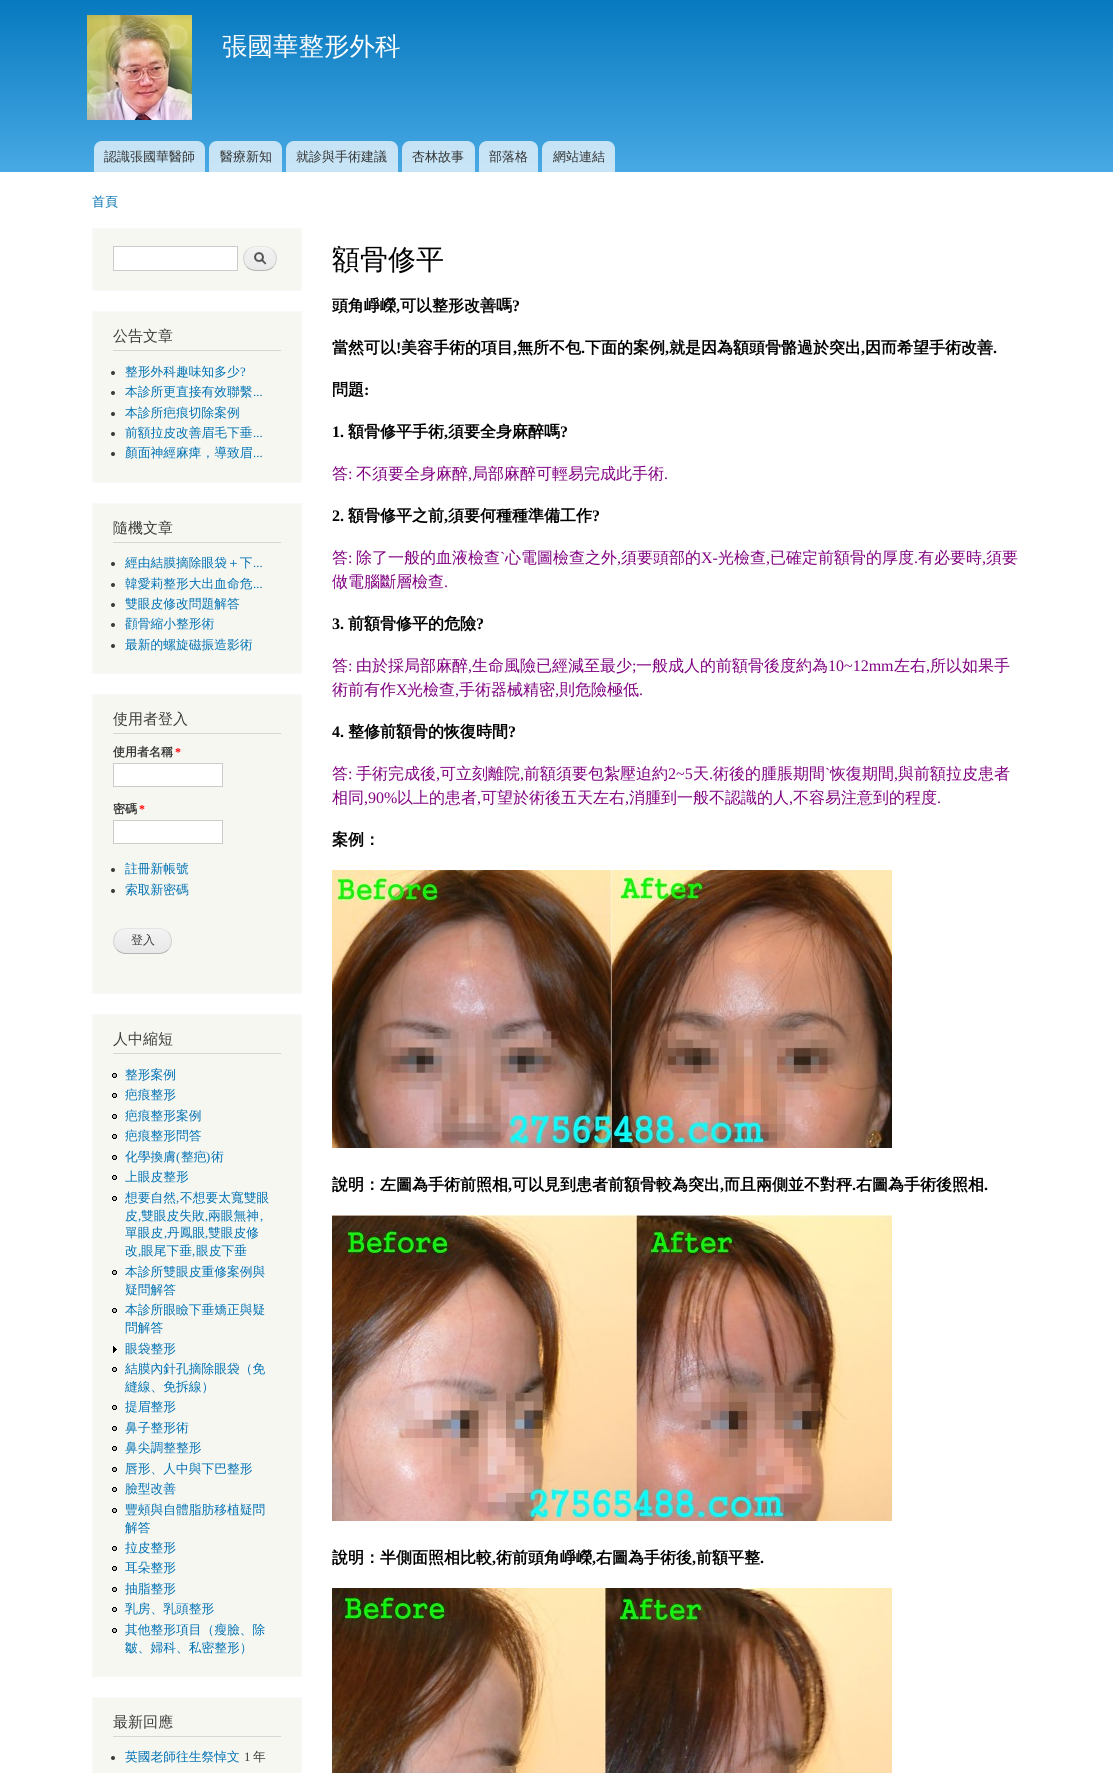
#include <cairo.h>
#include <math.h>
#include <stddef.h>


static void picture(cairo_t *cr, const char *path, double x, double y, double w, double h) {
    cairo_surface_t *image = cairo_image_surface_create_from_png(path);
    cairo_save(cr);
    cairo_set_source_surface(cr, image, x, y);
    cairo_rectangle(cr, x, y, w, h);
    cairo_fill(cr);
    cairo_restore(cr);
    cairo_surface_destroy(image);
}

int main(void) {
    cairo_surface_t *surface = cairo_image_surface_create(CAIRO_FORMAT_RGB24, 1113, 1773);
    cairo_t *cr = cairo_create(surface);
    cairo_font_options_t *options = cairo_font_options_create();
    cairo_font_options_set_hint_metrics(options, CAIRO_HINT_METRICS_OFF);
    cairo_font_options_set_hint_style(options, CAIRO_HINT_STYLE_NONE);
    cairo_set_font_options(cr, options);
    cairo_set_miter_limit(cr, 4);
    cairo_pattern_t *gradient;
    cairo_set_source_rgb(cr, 1, 1, 1);
    cairo_paint(cr);
    gradient = cairo_pattern_create_linear(557, 0, 557, 172);
    cairo_pattern_add_color_stop_rgba(gradient, 0, 0.027, 0.475, 0.749, 1);
    cairo_pattern_add_color_stop_rgba(gradient, 1, 0.282, 0.663, 0.894, 1);
    cairo_set_source(cr, gradient);
    cairo_pattern_destroy(gradient);
    cairo_rectangle(cr, 0, 0, 1113, 172);
    cairo_fill(cr);
    picture(cr, "img1.png", 87, 15, 105, 105);
    cairo_select_font_face(cr, "WenQuanYi Zen Hei Medium", CAIRO_FONT_SLANT_NORMAL, CAIRO_FONT_WEIGHT_NORMAL);
    cairo_set_font_size(cr, 25.5);
    cairo_set_source_rgb(cr, 1, 0.996, 1);
    cairo_move_to(cr, 222, 55);
    cairo_show_text(cr, "張國華整形外科");
    cairo_set_source_rgba(cr, 1, 1, 1, 0.7);
    cairo_new_path(cr);
    cairo_move_to(cr, 102, 141);
    cairo_line_to(cr, 197, 141);
    cairo_curve_to(cr, 201.5, 141, 205, 144.5, 205, 149);
    cairo_line_to(cr, 205, 172);
    cairo_line_to(cr, 94, 172);
    cairo_line_to(cr, 94, 149);
    cairo_curve_to(cr, 94, 144.5, 97.5, 141, 102, 141);
    cairo_close_path(cr);
    cairo_fill(cr);
    cairo_set_font_size(cr, 13);
    cairo_set_source_rgb(cr, 0.2, 0.2, 0.2);
    cairo_move_to(cr, 104, 161);
    cairo_show_text(cr, "認識張國華醫師");
    cairo_set_source_rgba(cr, 1, 1, 1, 0.7);
    cairo_new_path(cr);
    cairo_move_to(cr, 217, 141);
    cairo_line_to(cr, 274, 141);
    cairo_curve_to(cr, 278.5, 141, 282, 144.5, 282, 149);
    cairo_line_to(cr, 282, 172);
    cairo_line_to(cr, 209, 172);
    cairo_line_to(cr, 209, 149);
    cairo_curve_to(cr, 209, 144.5, 212.5, 141, 217, 141);
    cairo_close_path(cr);
    cairo_fill(cr);
    cairo_set_source_rgb(cr, 0.2, 0.2, 0.2);
    cairo_move_to(cr, 220, 161);
    cairo_show_text(cr, "醫療新知");
    cairo_set_source_rgba(cr, 1, 1, 1, 0.7);
    cairo_new_path(cr);
    cairo_move_to(cr, 294, 141);
    cairo_line_to(cr, 390, 141);
    cairo_curve_to(cr, 394.5, 141, 398, 144.5, 398, 149);
    cairo_line_to(cr, 398, 172);
    cairo_line_to(cr, 286, 172);
    cairo_line_to(cr, 286, 149);
    cairo_curve_to(cr, 286, 144.5, 289.5, 141, 294, 141);
    cairo_close_path(cr);
    cairo_fill(cr);
    cairo_set_source_rgb(cr, 0.2, 0.2, 0.2);
    cairo_move_to(cr, 296, 161);
    cairo_show_text(cr, "就診與手術建議");
    cairo_set_source_rgba(cr, 1, 1, 1, 0.7);
    cairo_new_path(cr);
    cairo_move_to(cr, 410, 141);
    cairo_line_to(cr, 467, 141);
    cairo_curve_to(cr, 471.5, 141, 475, 144.5, 475, 149);
    cairo_line_to(cr, 475, 172);
    cairo_line_to(cr, 402, 172);
    cairo_line_to(cr, 402, 149);
    cairo_curve_to(cr, 402, 144.5, 405.5, 141, 410, 141);
    cairo_close_path(cr);
    cairo_fill(cr);
    cairo_set_source_rgb(cr, 0.2, 0.2, 0.2);
    cairo_move_to(cr, 412, 161);
    cairo_show_text(cr, "杏林故事");
    cairo_set_source_rgba(cr, 1, 1, 1, 0.7);
    cairo_new_path(cr);
    cairo_move_to(cr, 487, 141);
    cairo_line_to(cr, 530, 141);
    cairo_curve_to(cr, 534.5, 141, 538, 144.5, 538, 149);
    cairo_line_to(cr, 538, 172);
    cairo_line_to(cr, 479, 172);
    cairo_line_to(cr, 479, 149);
    cairo_curve_to(cr, 479, 144.5, 482.5, 141, 487, 141);
    cairo_close_path(cr);
    cairo_fill(cr);
    cairo_set_source_rgb(cr, 0.2, 0.2, 0.2);
    cairo_move_to(cr, 489, 161);
    cairo_show_text(cr, "部落格");
    cairo_set_source_rgba(cr, 1, 1, 1, 0.7);
    cairo_new_path(cr);
    cairo_move_to(cr, 550, 141);
    cairo_line_to(cr, 607, 141);
    cairo_curve_to(cr, 611.5, 141, 615, 144.5, 615, 149);
    cairo_line_to(cr, 615, 172);
    cairo_line_to(cr, 542, 172);
    cairo_line_to(cr, 542, 149);
    cairo_curve_to(cr, 542, 144.5, 545.5, 141, 550, 141);
    cairo_close_path(cr);
    cairo_fill(cr);
    cairo_set_source_rgb(cr, 0.2, 0.2, 0.2);
    cairo_move_to(cr, 553, 161);
    cairo_show_text(cr, "網站連結");
    cairo_set_source_rgb(cr, 0, 0.443, 0.702);
    cairo_move_to(cr, 92, 206);
    cairo_show_text(cr, "首頁");
    cairo_set_source_rgb(cr, 0.965, 0.965, 0.949);
    cairo_rectangle(cr, 92.5, 228.5, 209, 62);
    cairo_fill_preserve(cr);
    cairo_set_source_rgb(cr, 0.976, 0.976, 0.976);
    cairo_set_line_width(cr, 1);
    cairo_stroke(cr);
    cairo_set_source_rgb(cr, 1, 1, 1);
    cairo_rectangle(cr, 113.5, 246.5, 124, 24);
    cairo_fill_preserve(cr);
    cairo_set_source_rgb(cr, 0.8, 0.8, 0.8);
    cairo_stroke(cr);
    picture(cr, "img2.png", 243, 248, 34, 23);
    cairo_new_path(cr);
    cairo_move_to(cr, 247, 250);
    cairo_curve_to(cr, 250.5, 246.5, 255, 246.5, 260, 246.5);
    cairo_curve_to(cr, 265, 246.5, 269.5, 246.5, 273, 250);
    cairo_set_source_rgb(cr, 0.894, 0.894, 0.894);
    cairo_stroke(cr);
    cairo_new_path(cr);
    cairo_move_to(cr, 273, 250);
    cairo_curve_to(cr, 277.5, 254.5, 277.5, 262.5, 273, 267);
    cairo_set_source_rgb(cr, 0.824, 0.824, 0.824);
    cairo_stroke(cr);
    cairo_new_path(cr);
    cairo_move_to(cr, 273, 267);
    cairo_curve_to(cr, 269.5, 270.5, 265, 270.5, 260, 270.5);
    cairo_curve_to(cr, 255, 270.5, 250.5, 270.5, 247, 267);
    cairo_set_source_rgb(cr, 0.706, 0.706, 0.706);
    cairo_stroke(cr);
    cairo_new_path(cr);
    cairo_move_to(cr, 247, 267);
    cairo_curve_to(cr, 242.5, 262.5, 242.5, 254.5, 247, 250);
    cairo_set_source_rgb(cr, 0.824, 0.824, 0.824);
    cairo_stroke(cr);
    cairo_set_source_rgb(cr, 0.965, 0.965, 0.949);
    cairo_rectangle(cr, 92.5, 311.5, 209, 171);
    cairo_fill_preserve(cr);
    cairo_set_source_rgb(cr, 0.976, 0.976, 0.976);
    cairo_stroke(cr);
    cairo_set_source_rgb(cr, 0.839, 0.839, 0.839);
    cairo_rectangle(cr, 113, 350, 168, 1);
    cairo_fill(cr);
    cairo_set_font_size(cr, 15);
    cairo_set_source_rgb(cr, 0.231, 0.231, 0.231);
    cairo_move_to(cr, 113, 341);
    cairo_show_text(cr, "公告文章");
    cairo_new_path(cr);
    cairo_arc(cr, 113, 373, 2, 0, 2 * M_PI);
    cairo_fill(cr);
    cairo_set_font_size(cr, 12.75);
    cairo_set_source_rgb(cr, 0, 0.443, 0.702);
    cairo_move_to(cr, 125, 376);
    cairo_show_text(cr, "整形外科趣味知多少");
    cairo_select_font_face(cr, "Liberation Serif", CAIRO_FONT_SLANT_NORMAL, CAIRO_FONT_WEIGHT_NORMAL);
    cairo_move_to(cr, 240, 376);
    cairo_show_text(cr, "?");
    cairo_set_source_rgb(cr, 0.231, 0.231, 0.231);
    cairo_new_path(cr);
    cairo_arc(cr, 113, 393, 2, 0, 2 * M_PI);
    cairo_fill(cr);
    cairo_select_font_face(cr, "WenQuanYi Zen Hei Medium", CAIRO_FONT_SLANT_NORMAL, CAIRO_FONT_WEIGHT_NORMAL);
    cairo_set_source_rgb(cr, 0, 0.443, 0.702);
    cairo_move_to(cr, 125, 396);
    cairo_show_text(cr, "本診所更直接有效聯繫");
    cairo_select_font_face(cr, "Liberation Serif", CAIRO_FONT_SLANT_NORMAL, CAIRO_FONT_WEIGHT_NORMAL);
    cairo_move_to(cr, 253, 396);
    cairo_show_text(cr, "...");
    cairo_set_source_rgb(cr, 0.231, 0.231, 0.231);
    cairo_new_path(cr);
    cairo_arc(cr, 113, 414, 2, 0, 2 * M_PI);
    cairo_fill(cr);
    cairo_select_font_face(cr, "WenQuanYi Zen Hei Medium", CAIRO_FONT_SLANT_NORMAL, CAIRO_FONT_WEIGHT_NORMAL);
    cairo_set_source_rgb(cr, 0, 0.443, 0.702);
    cairo_move_to(cr, 125, 417);
    cairo_show_text(cr, "本診所疤痕切除案例");
    cairo_set_source_rgb(cr, 0.231, 0.231, 0.231);
    cairo_new_path(cr);
    cairo_arc(cr, 113, 434, 2, 0, 2 * M_PI);
    cairo_fill(cr);
    cairo_set_source_rgb(cr, 0, 0.443, 0.702);
    cairo_move_to(cr, 125, 437);
    cairo_show_text(cr, "前額拉皮改善眉毛下垂");
    cairo_select_font_face(cr, "Liberation Serif", CAIRO_FONT_SLANT_NORMAL, CAIRO_FONT_WEIGHT_NORMAL);
    cairo_move_to(cr, 253, 437);
    cairo_show_text(cr, "...");
    cairo_set_source_rgb(cr, 0.231, 0.231, 0.231);
    cairo_new_path(cr);
    cairo_arc(cr, 113, 454, 2, 0, 2 * M_PI);
    cairo_fill(cr);
    cairo_select_font_face(cr, "WenQuanYi Zen Hei Medium", CAIRO_FONT_SLANT_NORMAL, CAIRO_FONT_WEIGHT_NORMAL);
    cairo_set_source_rgb(cr, 0, 0.443, 0.702);
    cairo_move_to(cr, 125, 457);
    cairo_show_text(cr, "顏面神經麻痺，導致眉");
    cairo_select_font_face(cr, "Liberation Serif", CAIRO_FONT_SLANT_NORMAL, CAIRO_FONT_WEIGHT_NORMAL);
    cairo_move_to(cr, 253, 457);
    cairo_show_text(cr, "...");
    cairo_set_source_rgb(cr, 0.965, 0.965, 0.949);
    cairo_rectangle(cr, 92.5, 503.5, 209, 170);
    cairo_fill_preserve(cr);
    cairo_set_source_rgb(cr, 0.976, 0.976, 0.976);
    cairo_stroke(cr);
    cairo_set_source_rgb(cr, 0.839, 0.839, 0.839);
    cairo_rectangle(cr, 113, 542, 168, 1);
    cairo_fill(cr);
    cairo_select_font_face(cr, "WenQuanYi Zen Hei Medium", CAIRO_FONT_SLANT_NORMAL, CAIRO_FONT_WEIGHT_NORMAL);
    cairo_set_font_size(cr, 15);
    cairo_set_source_rgb(cr, 0.231, 0.231, 0.231);
    cairo_move_to(cr, 113, 533);
    cairo_show_text(cr, "隨機文章");
    cairo_new_path(cr);
    cairo_arc(cr, 113, 564, 2, 0, 2 * M_PI);
    cairo_fill(cr);
    cairo_set_font_size(cr, 12.75);
    cairo_set_source_rgb(cr, 0, 0.443, 0.702);
    cairo_move_to(cr, 125, 567);
    cairo_show_text(cr, "經由結膜摘除眼袋＋下");
    cairo_select_font_face(cr, "Liberation Serif", CAIRO_FONT_SLANT_NORMAL, CAIRO_FONT_WEIGHT_NORMAL);
    cairo_move_to(cr, 253, 567);
    cairo_show_text(cr, "...");
    cairo_set_source_rgb(cr, 0.231, 0.231, 0.231);
    cairo_new_path(cr);
    cairo_arc(cr, 113, 585, 2, 0, 2 * M_PI);
    cairo_fill(cr);
    cairo_select_font_face(cr, "WenQuanYi Zen Hei Medium", CAIRO_FONT_SLANT_NORMAL, CAIRO_FONT_WEIGHT_NORMAL);
    cairo_set_source_rgb(cr, 0, 0.443, 0.702);
    cairo_move_to(cr, 125, 588);
    cairo_show_text(cr, "韓愛莉整形大出血命危");
    cairo_select_font_face(cr, "Liberation Serif", CAIRO_FONT_SLANT_NORMAL, CAIRO_FONT_WEIGHT_NORMAL);
    cairo_move_to(cr, 253, 588);
    cairo_show_text(cr, "...");
    cairo_set_source_rgb(cr, 0.231, 0.231, 0.231);
    cairo_new_path(cr);
    cairo_arc(cr, 113, 605, 2, 0, 2 * M_PI);
    cairo_fill(cr);
    cairo_select_font_face(cr, "WenQuanYi Zen Hei Medium", CAIRO_FONT_SLANT_NORMAL, CAIRO_FONT_WEIGHT_NORMAL);
    cairo_set_source_rgb(cr, 0, 0.443, 0.702);
    cairo_move_to(cr, 125, 608);
    cairo_show_text(cr, "雙眼皮修改問題解答");
    cairo_set_source_rgb(cr, 0.231, 0.231, 0.231);
    cairo_new_path(cr);
    cairo_arc(cr, 113, 625, 2, 0, 2 * M_PI);
    cairo_fill(cr);
    cairo_set_source_rgb(cr, 0, 0.443, 0.702);
    cairo_move_to(cr, 125, 628);
    cairo_show_text(cr, "顴骨縮小整形術");
    cairo_set_source_rgb(cr, 0.231, 0.231, 0.231);
    cairo_new_path(cr);
    cairo_arc(cr, 113, 646, 2, 0, 2 * M_PI);
    cairo_fill(cr);
    cairo_set_source_rgb(cr, 0, 0.443, 0.702);
    cairo_move_to(cr, 125, 649);
    cairo_show_text(cr, "最新的螺旋磁振造影術");
    cairo_set_source_rgb(cr, 0.965, 0.965, 0.949);
    cairo_rectangle(cr, 92.5, 694.5, 209, 299);
    cairo_fill_preserve(cr);
    cairo_set_source_rgb(cr, 0.976, 0.976, 0.976);
    cairo_stroke(cr);
    cairo_set_source_rgb(cr, 0.839, 0.839, 0.839);
    cairo_rectangle(cr, 113, 733, 168, 1);
    cairo_fill(cr);
    cairo_set_font_size(cr, 15);
    cairo_set_source_rgb(cr, 0.231, 0.231, 0.231);
    cairo_move_to(cr, 113, 724);
    cairo_show_text(cr, "使用者登入");
    cairo_select_font_face(cr, "WenQuanYi Zen Hei", CAIRO_FONT_SLANT_NORMAL, CAIRO_FONT_WEIGHT_BOLD);
    cairo_set_font_size(cr, 12);
    cairo_move_to(cr, 113, 756);
    cairo_show_text(cr, "使用者名稱");
    cairo_select_font_face(cr, "Liberation Serif", CAIRO_FONT_SLANT_NORMAL, CAIRO_FONT_WEIGHT_BOLD);
    cairo_set_source_rgb(cr, 1, 0, 0);
    cairo_move_to(cr, 175, 756);
    cairo_show_text(cr, "*");
    cairo_set_source_rgb(cr, 1, 1, 1);
    cairo_rectangle(cr, 113.5, 763.5, 109, 23);
    cairo_fill_preserve(cr);
    cairo_set_source_rgb(cr, 0.8, 0.8, 0.8);
    cairo_stroke(cr);
    cairo_select_font_face(cr, "WenQuanYi Zen Hei", CAIRO_FONT_SLANT_NORMAL, CAIRO_FONT_WEIGHT_BOLD);
    cairo_set_source_rgb(cr, 0.231, 0.231, 0.231);
    cairo_move_to(cr, 113, 813);
    cairo_show_text(cr, "密碼");
    cairo_select_font_face(cr, "Liberation Serif", CAIRO_FONT_SLANT_NORMAL, CAIRO_FONT_WEIGHT_BOLD);
    cairo_set_source_rgb(cr, 1, 0, 0);
    cairo_move_to(cr, 139, 813);
    cairo_show_text(cr, "*");
    cairo_set_source_rgb(cr, 1, 1, 1);
    cairo_rectangle(cr, 113.5, 820.5, 109, 23);
    cairo_fill_preserve(cr);
    cairo_set_source_rgb(cr, 0.8, 0.8, 0.8);
    cairo_stroke(cr);
    cairo_set_source_rgb(cr, 0.231, 0.231, 0.231);
    cairo_arc(cr, 113, 870, 2, 0, 2 * M_PI);
    cairo_fill(cr);
    cairo_select_font_face(cr, "WenQuanYi Zen Hei Medium", CAIRO_FONT_SLANT_NORMAL, CAIRO_FONT_WEIGHT_NORMAL);
    cairo_set_font_size(cr, 12.75);
    cairo_set_source_rgb(cr, 0, 0.443, 0.702);
    cairo_move_to(cr, 125, 873);
    cairo_show_text(cr, "註冊新帳號");
    cairo_set_source_rgb(cr, 0.231, 0.231, 0.231);
    cairo_new_path(cr);
    cairo_arc(cr, 113, 891, 2, 0, 2 * M_PI);
    cairo_fill(cr);
    cairo_set_source_rgb(cr, 0, 0.443, 0.702);
    cairo_move_to(cr, 125, 894);
    cairo_show_text(cr, "索取新密碼");
    picture(cr, "img3.png", 113, 929, 59, 25);
    cairo_new_path(cr);
    cairo_move_to(cr, 117, 932);
    cairo_curve_to(cr, 119.5, 930, 122.5, 928.5, 126, 928.5);
    cairo_line_to(cr, 159, 928.5);
    cairo_curve_to(cr, 162.5, 928.5, 165.5, 930, 168, 932);
    cairo_set_source_rgb(cr, 0.894, 0.894, 0.894);
    cairo_stroke(cr);
    cairo_new_path(cr);
    cairo_move_to(cr, 168, 932);
    cairo_curve_to(cr, 172.5, 937, 172.5, 945, 168, 950);
    cairo_set_source_rgb(cr, 0.824, 0.824, 0.824);
    cairo_stroke(cr);
    cairo_new_path(cr);
    cairo_move_to(cr, 168, 950);
    cairo_curve_to(cr, 165.5, 952, 162.5, 953.5, 159, 953.5);
    cairo_line_to(cr, 126, 953.5);
    cairo_curve_to(cr, 122.5, 953.5, 119.5, 952, 117, 950);
    cairo_set_source_rgb(cr, 0.706, 0.706, 0.706);
    cairo_stroke(cr);
    cairo_new_path(cr);
    cairo_move_to(cr, 117, 950);
    cairo_curve_to(cr, 112.5, 945, 112.5, 937, 117, 932);
    cairo_set_source_rgb(cr, 0.824, 0.824, 0.824);
    cairo_stroke(cr);
    cairo_set_font_size(cr, 12);
    cairo_set_source_rgb(cr, 0.231, 0.231, 0.231);
    cairo_move_to(cr, 131, 944);
    cairo_show_text(cr, "登入");
    cairo_set_source_rgb(cr, 0.965, 0.965, 0.949);
    cairo_rectangle(cr, 92.5, 1014.5, 209, 662);
    cairo_fill_preserve(cr);
    cairo_set_source_rgb(cr, 0.976, 0.976, 0.976);
    cairo_stroke(cr);
    cairo_set_source_rgb(cr, 0.839, 0.839, 0.839);
    cairo_rectangle(cr, 113, 1053, 168, 1);
    cairo_fill(cr);
    cairo_set_font_size(cr, 15);
    cairo_set_source_rgb(cr, 0.231, 0.231, 0.231);
    cairo_move_to(cr, 113, 1044);
    cairo_show_text(cr, "人中縮短");
    picture(cr, "img4.png", 112, 1073, 5, 5);
    cairo_set_font_size(cr, 12.75);
    cairo_set_source_rgb(cr, 0, 0.443, 0.702);
    cairo_move_to(cr, 125, 1079);
    cairo_show_text(cr, "整形案例");
    picture(cr, "img4.png", 112, 1093, 5, 5);
    cairo_move_to(cr, 125, 1099);
    cairo_show_text(cr, "疤痕整形");
    picture(cr, "img4.png", 112, 1114, 5, 5);
    cairo_move_to(cr, 125, 1120);
    cairo_show_text(cr, "疤痕整形案例");
    picture(cr, "img4.png", 112, 1134, 5, 5);
    cairo_move_to(cr, 125, 1140);
    cairo_show_text(cr, "疤痕整形問答");
    picture(cr, "img4.png", 112, 1155, 5, 5);
    cairo_move_to(cr, 125, 1161);
    cairo_show_text(cr, "化學換膚");
    cairo_select_font_face(cr, "Liberation Serif", CAIRO_FONT_SLANT_NORMAL, CAIRO_FONT_WEIGHT_NORMAL);
    cairo_move_to(cr, 176, 1161);
    cairo_show_text(cr, "(");
    cairo_select_font_face(cr, "WenQuanYi Zen Hei Medium", CAIRO_FONT_SLANT_NORMAL, CAIRO_FONT_WEIGHT_NORMAL);
    cairo_move_to(cr, 181, 1161);
    cairo_show_text(cr, "整疤");
    cairo_select_font_face(cr, "Liberation Serif", CAIRO_FONT_SLANT_NORMAL, CAIRO_FONT_WEIGHT_NORMAL);
    cairo_move_to(cr, 206, 1161);
    cairo_show_text(cr, ")");
    cairo_select_font_face(cr, "WenQuanYi Zen Hei Medium", CAIRO_FONT_SLANT_NORMAL, CAIRO_FONT_WEIGHT_NORMAL);
    cairo_move_to(cr, 211, 1161);
    cairo_show_text(cr, "術");
    picture(cr, "img4.png", 112, 1175, 5, 5);
    cairo_move_to(cr, 125, 1181);
    cairo_show_text(cr, "上眼皮整形");
    picture(cr, "img4.png", 112, 1196, 5, 5);
    cairo_move_to(cr, 125, 1202);
    cairo_show_text(cr, "想要自然");
    cairo_select_font_face(cr, "Liberation Serif", CAIRO_FONT_SLANT_NORMAL, CAIRO_FONT_WEIGHT_NORMAL);
    cairo_move_to(cr, 176, 1202);
    cairo_show_text(cr, ",");
    cairo_select_font_face(cr, "WenQuanYi Zen Hei Medium", CAIRO_FONT_SLANT_NORMAL, CAIRO_FONT_WEIGHT_NORMAL);
    cairo_move_to(cr, 180, 1202);
    cairo_show_text(cr, "不想要太寬雙眼");
    cairo_move_to(cr, 125, 1220);
    cairo_show_text(cr, "皮");
    cairo_select_font_face(cr, "Liberation Serif", CAIRO_FONT_SLANT_NORMAL, CAIRO_FONT_WEIGHT_NORMAL);
    cairo_move_to(cr, 138, 1220);
    cairo_show_text(cr, ",");
    cairo_select_font_face(cr, "WenQuanYi Zen Hei Medium", CAIRO_FONT_SLANT_NORMAL, CAIRO_FONT_WEIGHT_NORMAL);
    cairo_move_to(cr, 141, 1220);
    cairo_show_text(cr, "雙眼皮失敗");
    cairo_select_font_face(cr, "Liberation Serif", CAIRO_FONT_SLANT_NORMAL, CAIRO_FONT_WEIGHT_NORMAL);
    cairo_move_to(cr, 205, 1220);
    cairo_show_text(cr, ",");
    cairo_select_font_face(cr, "WenQuanYi Zen Hei Medium", CAIRO_FONT_SLANT_NORMAL, CAIRO_FONT_WEIGHT_NORMAL);
    cairo_move_to(cr, 208, 1220);
    cairo_show_text(cr, "兩眼無神");
    cairo_select_font_face(cr, "Liberation Serif", CAIRO_FONT_SLANT_NORMAL, CAIRO_FONT_WEIGHT_NORMAL);
    cairo_move_to(cr, 260, 1220);
    cairo_show_text(cr, ",");
    cairo_select_font_face(cr, "WenQuanYi Zen Hei Medium", CAIRO_FONT_SLANT_NORMAL, CAIRO_FONT_WEIGHT_NORMAL);
    cairo_move_to(cr, 125, 1237);
    cairo_show_text(cr, "單眼皮");
    cairo_select_font_face(cr, "Liberation Serif", CAIRO_FONT_SLANT_NORMAL, CAIRO_FONT_WEIGHT_NORMAL);
    cairo_move_to(cr, 164, 1237);
    cairo_show_text(cr, ",");
    cairo_select_font_face(cr, "WenQuanYi Zen Hei Medium", CAIRO_FONT_SLANT_NORMAL, CAIRO_FONT_WEIGHT_NORMAL);
    cairo_move_to(cr, 167, 1237);
    cairo_show_text(cr, "丹鳳眼");
    cairo_select_font_face(cr, "Liberation Serif", CAIRO_FONT_SLANT_NORMAL, CAIRO_FONT_WEIGHT_NORMAL);
    cairo_move_to(cr, 205, 1237);
    cairo_show_text(cr, ",");
    cairo_select_font_face(cr, "WenQuanYi Zen Hei Medium", CAIRO_FONT_SLANT_NORMAL, CAIRO_FONT_WEIGHT_NORMAL);
    cairo_move_to(cr, 208, 1237);
    cairo_show_text(cr, "雙眼皮修");
    cairo_move_to(cr, 125, 1255);
    cairo_show_text(cr, "改");
    cairo_select_font_face(cr, "Liberation Serif", CAIRO_FONT_SLANT_NORMAL, CAIRO_FONT_WEIGHT_NORMAL);
    cairo_move_to(cr, 138, 1255);
    cairo_show_text(cr, ",");
    cairo_select_font_face(cr, "WenQuanYi Zen Hei Medium", CAIRO_FONT_SLANT_NORMAL, CAIRO_FONT_WEIGHT_NORMAL);
    cairo_move_to(cr, 141, 1255);
    cairo_show_text(cr, "眼尾下垂");
    cairo_select_font_face(cr, "Liberation Serif", CAIRO_FONT_SLANT_NORMAL, CAIRO_FONT_WEIGHT_NORMAL);
    cairo_move_to(cr, 192, 1255);
    cairo_show_text(cr, ",");
    cairo_select_font_face(cr, "WenQuanYi Zen Hei Medium", CAIRO_FONT_SLANT_NORMAL, CAIRO_FONT_WEIGHT_NORMAL);
    cairo_move_to(cr, 196, 1255);
    cairo_show_text(cr, "眼皮下垂");
    picture(cr, "img4.png", 112, 1270, 5, 5);
    cairo_move_to(cr, 125, 1276);
    cairo_show_text(cr, "本診所雙眼皮重修案例與");
    cairo_move_to(cr, 125, 1294);
    cairo_show_text(cr, "疑問解答");
    picture(cr, "img4.png", 112, 1308, 5, 5);
    cairo_move_to(cr, 125, 1314);
    cairo_show_text(cr, "本診所眼瞼下垂矯正與疑");
    cairo_move_to(cr, 125, 1332);
    cairo_show_text(cr, "問解答");
    picture(cr, "img5.png", 113, 1346, 4, 7);
    cairo_move_to(cr, 125, 1353);
    cairo_show_text(cr, "眼袋整形");
    picture(cr, "img4.png", 112, 1367, 5, 5);
    cairo_move_to(cr, 125, 1373);
    cairo_show_text(cr, "結膜內針孔摘除眼袋（免");
    cairo_move_to(cr, 125, 1391);
    cairo_show_text(cr, "縫線、免拆線）");
    picture(cr, "img4.png", 112, 1405, 5, 5);
    cairo_move_to(cr, 125, 1411);
    cairo_show_text(cr, "提眉整形");
    picture(cr, "img4.png", 112, 1426, 5, 5);
    cairo_move_to(cr, 125, 1432);
    cairo_show_text(cr, "鼻子整形術");
    picture(cr, "img4.png", 112, 1446, 5, 5);
    cairo_move_to(cr, 125, 1452);
    cairo_show_text(cr, "鼻尖調整整形");
    picture(cr, "img4.png", 112, 1467, 5, 5);
    cairo_move_to(cr, 125, 1473);
    cairo_show_text(cr, "唇形、人中與下巴整形");
    picture(cr, "img4.png", 112, 1487, 5, 5);
    cairo_move_to(cr, 125, 1493);
    cairo_show_text(cr, "臉型改善");
    picture(cr, "img4.png", 112, 1508, 5, 5);
    cairo_move_to(cr, 125, 1514);
    cairo_show_text(cr, "豐頰與自體脂肪移植疑問");
    cairo_move_to(cr, 125, 1532);
    cairo_show_text(cr, "解答");
    picture(cr, "img4.png", 112, 1546, 5, 5);
    cairo_move_to(cr, 125, 1552);
    cairo_show_text(cr, "拉皮整形");
    picture(cr, "img4.png", 112, 1566, 5, 5);
    cairo_move_to(cr, 125, 1572);
    cairo_show_text(cr, "耳朵整形");
    picture(cr, "img4.png", 112, 1587, 5, 5);
    cairo_move_to(cr, 125, 1593);
    cairo_show_text(cr, "抽脂整形");
    picture(cr, "img4.png", 112, 1607, 5, 5);
    cairo_move_to(cr, 125, 1613);
    cairo_show_text(cr, "乳房、乳頭整形");
    picture(cr, "img4.png", 112, 1628, 5, 5);
    cairo_move_to(cr, 125, 1634);
    cairo_show_text(cr, "其他整形項目（瘦臉、除");
    cairo_move_to(cr, 125, 1652);
    cairo_show_text(cr, "皺、婦科、私密整形）");
    cairo_set_source_rgb(cr, 0.965, 0.965, 0.949);
    cairo_rectangle(cr, 92.5, 1697.5, 209, 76);
    cairo_fill_preserve(cr);
    cairo_set_source_rgb(cr, 0.976, 0.976, 0.976);
    cairo_stroke(cr);
    cairo_set_source_rgb(cr, 0.839, 0.839, 0.839);
    cairo_rectangle(cr, 113, 1736, 168, 1);
    cairo_fill(cr);
    cairo_set_font_size(cr, 15);
    cairo_set_source_rgb(cr, 0.231, 0.231, 0.231);
    cairo_move_to(cr, 113, 1727);
    cairo_show_text(cr, "最新回應");
    cairo_new_path(cr);
    cairo_arc(cr, 113, 1758, 2, 0, 2 * M_PI);
    cairo_fill(cr);
    cairo_set_font_size(cr, 12.75);
    cairo_set_source_rgb(cr, 0, 0.443, 0.702);
    cairo_move_to(cr, 125, 1761);
    cairo_show_text(cr, "英國老師往生祭悼文");
    cairo_select_font_face(cr, "Liberation Serif", CAIRO_FONT_SLANT_NORMAL, CAIRO_FONT_WEIGHT_NORMAL);
    cairo_set_source_rgb(cr, 0.231, 0.231, 0.231);
    cairo_move_to(cr, 244, 1761);
    cairo_show_text(cr, "1");
    cairo_select_font_face(cr, "WenQuanYi Zen Hei Medium", CAIRO_FONT_SLANT_NORMAL, CAIRO_FONT_WEIGHT_NORMAL);
    cairo_move_to(cr, 253, 1761);
    cairo_show_text(cr, "年");
    cairo_set_font_size(cr, 28);
    cairo_set_source_rgb(cr, 0, 0, 0);
    cairo_move_to(cr, 332, 269);
    cairo_show_text(cr, "額骨修平");
    cairo_select_font_face(cr, "WenQuanYi Zen Hei", CAIRO_FONT_SLANT_NORMAL, CAIRO_FONT_WEIGHT_BOLD);
    cairo_set_font_size(cr, 16);
    cairo_move_to(cr, 332, 311);
    cairo_show_text(cr, "頭角崢嶸");
    cairo_select_font_face(cr, "Liberation Serif", CAIRO_FONT_SLANT_NORMAL, CAIRO_FONT_WEIGHT_BOLD);
    cairo_move_to(cr, 396, 311);
    cairo_show_text(cr, ",");
    cairo_select_font_face(cr, "WenQuanYi Zen Hei", CAIRO_FONT_SLANT_NORMAL, CAIRO_FONT_WEIGHT_BOLD);
    cairo_move_to(cr, 400, 311);
    cairo_show_text(cr, "可以整形改善嗎");
    cairo_select_font_face(cr, "Liberation Serif", CAIRO_FONT_SLANT_NORMAL, CAIRO_FONT_WEIGHT_BOLD);
    cairo_move_to(cr, 512, 311);
    cairo_show_text(cr, "?");
    cairo_select_font_face(cr, "WenQuanYi Zen Hei", CAIRO_FONT_SLANT_NORMAL, CAIRO_FONT_WEIGHT_BOLD);
    cairo_move_to(cr, 332, 353);
    cairo_show_text(cr, "當然可以");
    cairo_select_font_face(cr, "Liberation Serif", CAIRO_FONT_SLANT_NORMAL, CAIRO_FONT_WEIGHT_BOLD);
    cairo_move_to(cr, 396, 353);
    cairo_show_text(cr, "!");
    cairo_select_font_face(cr, "WenQuanYi Zen Hei", CAIRO_FONT_SLANT_NORMAL, CAIRO_FONT_WEIGHT_BOLD);
    cairo_move_to(cr, 401, 353);
    cairo_show_text(cr, "美容手術的項目");
    cairo_select_font_face(cr, "Liberation Serif", CAIRO_FONT_SLANT_NORMAL, CAIRO_FONT_WEIGHT_BOLD);
    cairo_move_to(cr, 513, 353);
    cairo_show_text(cr, ",");
    cairo_select_font_face(cr, "WenQuanYi Zen Hei", CAIRO_FONT_SLANT_NORMAL, CAIRO_FONT_WEIGHT_BOLD);
    cairo_move_to(cr, 517, 353);
    cairo_show_text(cr, "無所不包");
    cairo_select_font_face(cr, "Liberation Serif", CAIRO_FONT_SLANT_NORMAL, CAIRO_FONT_WEIGHT_BOLD);
    cairo_move_to(cr, 581, 353);
    cairo_show_text(cr, ".");
    cairo_select_font_face(cr, "WenQuanYi Zen Hei", CAIRO_FONT_SLANT_NORMAL, CAIRO_FONT_WEIGHT_BOLD);
    cairo_move_to(cr, 585, 353);
    cairo_show_text(cr, "下面的案例");
    cairo_select_font_face(cr, "Liberation Serif", CAIRO_FONT_SLANT_NORMAL, CAIRO_FONT_WEIGHT_BOLD);
    cairo_move_to(cr, 665, 353);
    cairo_show_text(cr, ",");
    cairo_select_font_face(cr, "WenQuanYi Zen Hei", CAIRO_FONT_SLANT_NORMAL, CAIRO_FONT_WEIGHT_BOLD);
    cairo_move_to(cr, 669, 353);
    cairo_show_text(cr, "就是因為額頭骨骼過於突出");
    cairo_select_font_face(cr, "Liberation Serif", CAIRO_FONT_SLANT_NORMAL, CAIRO_FONT_WEIGHT_BOLD);
    cairo_move_to(cr, 861, 353);
    cairo_show_text(cr, ",");
    cairo_select_font_face(cr, "WenQuanYi Zen Hei", CAIRO_FONT_SLANT_NORMAL, CAIRO_FONT_WEIGHT_BOLD);
    cairo_move_to(cr, 865, 353);
    cairo_show_text(cr, "因而希望手術改善");
    cairo_select_font_face(cr, "Liberation Serif", CAIRO_FONT_SLANT_NORMAL, CAIRO_FONT_WEIGHT_BOLD);
    cairo_move_to(cr, 993, 353);
    cairo_show_text(cr, ".");
    cairo_select_font_face(cr, "WenQuanYi Zen Hei", CAIRO_FONT_SLANT_NORMAL, CAIRO_FONT_WEIGHT_BOLD);
    cairo_move_to(cr, 332, 395);
    cairo_show_text(cr, "問題");
    cairo_select_font_face(cr, "Liberation Serif", CAIRO_FONT_SLANT_NORMAL, CAIRO_FONT_WEIGHT_BOLD);
    cairo_move_to(cr, 364, 395);
    cairo_show_text(cr, ":");
    cairo_move_to(cr, 332, 437);
    cairo_show_text(cr, "1.");
    cairo_select_font_face(cr, "WenQuanYi Zen Hei", CAIRO_FONT_SLANT_NORMAL, CAIRO_FONT_WEIGHT_BOLD);
    cairo_move_to(cr, 348, 437);
    cairo_show_text(cr, "額骨修平手術");
    cairo_select_font_face(cr, "Liberation Serif", CAIRO_FONT_SLANT_NORMAL, CAIRO_FONT_WEIGHT_BOLD);
    cairo_move_to(cr, 444, 437);
    cairo_show_text(cr, ",");
    cairo_select_font_face(cr, "WenQuanYi Zen Hei", CAIRO_FONT_SLANT_NORMAL, CAIRO_FONT_WEIGHT_BOLD);
    cairo_move_to(cr, 448, 437);
    cairo_show_text(cr, "須要全身麻醉嗎");
    cairo_select_font_face(cr, "Liberation Serif", CAIRO_FONT_SLANT_NORMAL, CAIRO_FONT_WEIGHT_BOLD);
    cairo_move_to(cr, 560, 437);
    cairo_show_text(cr, "?");
    cairo_select_font_face(cr, "WenQuanYi Zen Hei Medium", CAIRO_FONT_SLANT_NORMAL, CAIRO_FONT_WEIGHT_NORMAL);
    cairo_set_source_rgb(cr, 0.502, 0, 0.502);
    cairo_move_to(cr, 332, 479);
    cairo_show_text(cr, "答");
    cairo_select_font_face(cr, "Liberation Serif", CAIRO_FONT_SLANT_NORMAL, CAIRO_FONT_WEIGHT_NORMAL);
    cairo_move_to(cr, 348, 479);
    cairo_show_text(cr, ":");
    cairo_select_font_face(cr, "WenQuanYi Zen Hei Medium", CAIRO_FONT_SLANT_NORMAL, CAIRO_FONT_WEIGHT_NORMAL);
    cairo_move_to(cr, 356, 479);
    cairo_show_text(cr, "不須要全身麻醉");
    cairo_select_font_face(cr, "Liberation Serif", CAIRO_FONT_SLANT_NORMAL, CAIRO_FONT_WEIGHT_NORMAL);
    cairo_move_to(cr, 468, 479);
    cairo_show_text(cr, ",");
    cairo_select_font_face(cr, "WenQuanYi Zen Hei Medium", CAIRO_FONT_SLANT_NORMAL, CAIRO_FONT_WEIGHT_NORMAL);
    cairo_move_to(cr, 472, 479);
    cairo_show_text(cr, "局部麻醉可輕易完成此手術");
    cairo_select_font_face(cr, "Liberation Serif", CAIRO_FONT_SLANT_NORMAL, CAIRO_FONT_WEIGHT_NORMAL);
    cairo_move_to(cr, 664, 479);
    cairo_show_text(cr, ".");
    cairo_select_font_face(cr, "Liberation Serif", CAIRO_FONT_SLANT_NORMAL, CAIRO_FONT_WEIGHT_BOLD);
    cairo_set_source_rgb(cr, 0, 0, 0);
    cairo_move_to(cr, 332, 521);
    cairo_show_text(cr, "2.");
    cairo_select_font_face(cr, "WenQuanYi Zen Hei", CAIRO_FONT_SLANT_NORMAL, CAIRO_FONT_WEIGHT_BOLD);
    cairo_move_to(cr, 348, 521);
    cairo_show_text(cr, "額骨修平之前");
    cairo_select_font_face(cr, "Liberation Serif", CAIRO_FONT_SLANT_NORMAL, CAIRO_FONT_WEIGHT_BOLD);
    cairo_move_to(cr, 444, 521);
    cairo_show_text(cr, ",");
    cairo_select_font_face(cr, "WenQuanYi Zen Hei", CAIRO_FONT_SLANT_NORMAL, CAIRO_FONT_WEIGHT_BOLD);
    cairo_move_to(cr, 448, 521);
    cairo_show_text(cr, "須要何種種準備工作");
    cairo_select_font_face(cr, "Liberation Serif", CAIRO_FONT_SLANT_NORMAL, CAIRO_FONT_WEIGHT_BOLD);
    cairo_move_to(cr, 592, 521);
    cairo_show_text(cr, "?");
    cairo_select_font_face(cr, "WenQuanYi Zen Hei Medium", CAIRO_FONT_SLANT_NORMAL, CAIRO_FONT_WEIGHT_NORMAL);
    cairo_set_source_rgb(cr, 0.502, 0, 0.502);
    cairo_move_to(cr, 332, 563);
    cairo_show_text(cr, "答");
    cairo_select_font_face(cr, "Liberation Serif", CAIRO_FONT_SLANT_NORMAL, CAIRO_FONT_WEIGHT_NORMAL);
    cairo_move_to(cr, 348, 563);
    cairo_show_text(cr, ":");
    cairo_select_font_face(cr, "WenQuanYi Zen Hei Medium", CAIRO_FONT_SLANT_NORMAL, CAIRO_FONT_WEIGHT_NORMAL);
    cairo_move_to(cr, 356, 563);
    cairo_show_text(cr, "除了一般的血液檢查");
    cairo_select_font_face(cr, "Liberation Serif", CAIRO_FONT_SLANT_NORMAL, CAIRO_FONT_WEIGHT_NORMAL);
    cairo_move_to(cr, 500, 563);
    cairo_show_text(cr, "ˋ");
    cairo_select_font_face(cr, "WenQuanYi Zen Hei Medium", CAIRO_FONT_SLANT_NORMAL, CAIRO_FONT_WEIGHT_NORMAL);
    cairo_move_to(cr, 505, 563);
    cairo_show_text(cr, "心電圖檢查之外");
    cairo_select_font_face(cr, "Liberation Serif", CAIRO_FONT_SLANT_NORMAL, CAIRO_FONT_WEIGHT_NORMAL);
    cairo_move_to(cr, 617, 563);
    cairo_show_text(cr, ",");
    cairo_select_font_face(cr, "WenQuanYi Zen Hei Medium", CAIRO_FONT_SLANT_NORMAL, CAIRO_FONT_WEIGHT_NORMAL);
    cairo_move_to(cr, 621, 563);
    cairo_show_text(cr, "須要頭部的");
    cairo_select_font_face(cr, "Liberation Serif", CAIRO_FONT_SLANT_NORMAL, CAIRO_FONT_WEIGHT_NORMAL);
    cairo_move_to(cr, 701, 563);
    cairo_show_text(cr, "X-");
    cairo_select_font_face(cr, "WenQuanYi Zen Hei Medium", CAIRO_FONT_SLANT_NORMAL, CAIRO_FONT_WEIGHT_NORMAL);
    cairo_move_to(cr, 718, 563);
    cairo_show_text(cr, "光檢查");
    cairo_select_font_face(cr, "Liberation Serif", CAIRO_FONT_SLANT_NORMAL, CAIRO_FONT_WEIGHT_NORMAL);
    cairo_move_to(cr, 766, 563);
    cairo_show_text(cr, ",");
    cairo_select_font_face(cr, "WenQuanYi Zen Hei Medium", CAIRO_FONT_SLANT_NORMAL, CAIRO_FONT_WEIGHT_NORMAL);
    cairo_move_to(cr, 770, 563);
    cairo_show_text(cr, "已確定前額骨的厚度");
    cairo_select_font_face(cr, "Liberation Serif", CAIRO_FONT_SLANT_NORMAL, CAIRO_FONT_WEIGHT_NORMAL);
    cairo_move_to(cr, 914, 563);
    cairo_show_text(cr, ".");
    cairo_select_font_face(cr, "WenQuanYi Zen Hei Medium", CAIRO_FONT_SLANT_NORMAL, CAIRO_FONT_WEIGHT_NORMAL);
    cairo_move_to(cr, 918, 563);
    cairo_show_text(cr, "有必要時");
    cairo_select_font_face(cr, "Liberation Serif", CAIRO_FONT_SLANT_NORMAL, CAIRO_FONT_WEIGHT_NORMAL);
    cairo_move_to(cr, 982, 563);
    cairo_show_text(cr, ",");
    cairo_select_font_face(cr, "WenQuanYi Zen Hei Medium", CAIRO_FONT_SLANT_NORMAL, CAIRO_FONT_WEIGHT_NORMAL);
    cairo_move_to(cr, 986, 563);
    cairo_show_text(cr, "須要");
    cairo_move_to(cr, 332, 587);
    cairo_show_text(cr, "做電腦斷層檢查");
    cairo_select_font_face(cr, "Liberation Serif", CAIRO_FONT_SLANT_NORMAL, CAIRO_FONT_WEIGHT_NORMAL);
    cairo_move_to(cr, 444, 587);
    cairo_show_text(cr, ".");
    cairo_select_font_face(cr, "Liberation Serif", CAIRO_FONT_SLANT_NORMAL, CAIRO_FONT_WEIGHT_BOLD);
    cairo_set_source_rgb(cr, 0, 0, 0);
    cairo_move_to(cr, 332, 629);
    cairo_show_text(cr, "3.");
    cairo_select_font_face(cr, "WenQuanYi Zen Hei", CAIRO_FONT_SLANT_NORMAL, CAIRO_FONT_WEIGHT_BOLD);
    cairo_move_to(cr, 348, 629);
    cairo_show_text(cr, "前額骨修平的危險");
    cairo_select_font_face(cr, "Liberation Serif", CAIRO_FONT_SLANT_NORMAL, CAIRO_FONT_WEIGHT_BOLD);
    cairo_move_to(cr, 476, 629);
    cairo_show_text(cr, "?");
    cairo_select_font_face(cr, "WenQuanYi Zen Hei Medium", CAIRO_FONT_SLANT_NORMAL, CAIRO_FONT_WEIGHT_NORMAL);
    cairo_set_source_rgb(cr, 0.502, 0, 0.502);
    cairo_move_to(cr, 332, 671);
    cairo_show_text(cr, "答");
    cairo_select_font_face(cr, "Liberation Serif", CAIRO_FONT_SLANT_NORMAL, CAIRO_FONT_WEIGHT_NORMAL);
    cairo_move_to(cr, 348, 671);
    cairo_show_text(cr, ":");
    cairo_select_font_face(cr, "WenQuanYi Zen Hei Medium", CAIRO_FONT_SLANT_NORMAL, CAIRO_FONT_WEIGHT_NORMAL);
    cairo_move_to(cr, 356, 671);
    cairo_show_text(cr, "由於採局部麻醉");
    cairo_select_font_face(cr, "Liberation Serif", CAIRO_FONT_SLANT_NORMAL, CAIRO_FONT_WEIGHT_NORMAL);
    cairo_move_to(cr, 468, 671);
    cairo_show_text(cr, ",");
    cairo_select_font_face(cr, "WenQuanYi Zen Hei Medium", CAIRO_FONT_SLANT_NORMAL, CAIRO_FONT_WEIGHT_NORMAL);
    cairo_move_to(cr, 472, 671);
    cairo_show_text(cr, "生命風險已經減至最少");
    cairo_select_font_face(cr, "Liberation Serif", CAIRO_FONT_SLANT_NORMAL, CAIRO_FONT_WEIGHT_NORMAL);
    cairo_move_to(cr, 632, 671);
    cairo_show_text(cr, ";");
    cairo_select_font_face(cr, "WenQuanYi Zen Hei Medium", CAIRO_FONT_SLANT_NORMAL, CAIRO_FONT_WEIGHT_NORMAL);
    cairo_move_to(cr, 636, 671);
    cairo_show_text(cr, "一般成人的前額骨後度約為");
    cairo_select_font_face(cr, "Liberation Serif", CAIRO_FONT_SLANT_NORMAL, CAIRO_FONT_WEIGHT_NORMAL);
    cairo_move_to(cr, 828, 671);
    cairo_show_text(cr, "10~12mm");
    cairo_select_font_face(cr, "WenQuanYi Zen Hei Medium", CAIRO_FONT_SLANT_NORMAL, CAIRO_FONT_WEIGHT_NORMAL);
    cairo_move_to(cr, 894, 671);
    cairo_show_text(cr, "左右");
    cairo_select_font_face(cr, "Liberation Serif", CAIRO_FONT_SLANT_NORMAL, CAIRO_FONT_WEIGHT_NORMAL);
    cairo_move_to(cr, 926, 671);
    cairo_show_text(cr, ",");
    cairo_select_font_face(cr, "WenQuanYi Zen Hei Medium", CAIRO_FONT_SLANT_NORMAL, CAIRO_FONT_WEIGHT_NORMAL);
    cairo_move_to(cr, 930, 671);
    cairo_show_text(cr, "所以如果手");
    cairo_move_to(cr, 332, 695);
    cairo_show_text(cr, "術前有作");
    cairo_select_font_face(cr, "Liberation Serif", CAIRO_FONT_SLANT_NORMAL, CAIRO_FONT_WEIGHT_NORMAL);
    cairo_move_to(cr, 396, 695);
    cairo_show_text(cr, "X");
    cairo_select_font_face(cr, "WenQuanYi Zen Hei Medium", CAIRO_FONT_SLANT_NORMAL, CAIRO_FONT_WEIGHT_NORMAL);
    cairo_move_to(cr, 407, 695);
    cairo_show_text(cr, "光檢查");
    cairo_move_to(cr, 459, 695);
    cairo_show_text(cr, "手術器械精密");
    cairo_move_to(cr, 559, 695);
    cairo_show_text(cr, "則危險極低");
    cairo_select_font_face(cr, "Liberation Serif", CAIRO_FONT_SLANT_NORMAL, CAIRO_FONT_WEIGHT_NORMAL);
    cairo_move_to(cr, 455, 695);
    cairo_show_text(cr, ",");
    cairo_move_to(cr, 555, 695);
    cairo_show_text(cr, ",");
    cairo_move_to(cr, 639, 695);
    cairo_show_text(cr, ".");
    cairo_select_font_face(cr, "Liberation Serif", CAIRO_FONT_SLANT_NORMAL, CAIRO_FONT_WEIGHT_BOLD);
    cairo_set_source_rgb(cr, 0, 0, 0);
    cairo_move_to(cr, 332, 737);
    cairo_show_text(cr, "4.");
    cairo_select_font_face(cr, "WenQuanYi Zen Hei", CAIRO_FONT_SLANT_NORMAL, CAIRO_FONT_WEIGHT_BOLD);
    cairo_move_to(cr, 348, 737);
    cairo_show_text(cr, "整修前額骨的恢復時間");
    cairo_select_font_face(cr, "Liberation Serif", CAIRO_FONT_SLANT_NORMAL, CAIRO_FONT_WEIGHT_BOLD);
    cairo_move_to(cr, 508, 737);
    cairo_show_text(cr, "?");
    cairo_select_font_face(cr, "WenQuanYi Zen Hei Medium", CAIRO_FONT_SLANT_NORMAL, CAIRO_FONT_WEIGHT_NORMAL);
    cairo_set_source_rgb(cr, 0.502, 0, 0.502);
    cairo_move_to(cr, 332, 779);
    cairo_show_text(cr, "答");
    cairo_select_font_face(cr, "Liberation Serif", CAIRO_FONT_SLANT_NORMAL, CAIRO_FONT_WEIGHT_NORMAL);
    cairo_move_to(cr, 348, 779);
    cairo_show_text(cr, ":");
    cairo_select_font_face(cr, "WenQuanYi Zen Hei Medium", CAIRO_FONT_SLANT_NORMAL, CAIRO_FONT_WEIGHT_NORMAL);
    cairo_move_to(cr, 356, 779);
    cairo_show_text(cr, "手術完成後");
    cairo_select_font_face(cr, "Liberation Serif", CAIRO_FONT_SLANT_NORMAL, CAIRO_FONT_WEIGHT_NORMAL);
    cairo_move_to(cr, 436, 779);
    cairo_show_text(cr, ",");
    cairo_select_font_face(cr, "WenQuanYi Zen Hei Medium", CAIRO_FONT_SLANT_NORMAL, CAIRO_FONT_WEIGHT_NORMAL);
    cairo_move_to(cr, 440, 779);
    cairo_show_text(cr, "可立刻離院");
    cairo_select_font_face(cr, "Liberation Serif", CAIRO_FONT_SLANT_NORMAL, CAIRO_FONT_WEIGHT_NORMAL);
    cairo_move_to(cr, 520, 779);
    cairo_show_text(cr, ",");
    cairo_select_font_face(cr, "WenQuanYi Zen Hei Medium", CAIRO_FONT_SLANT_NORMAL, CAIRO_FONT_WEIGHT_NORMAL);
    cairo_move_to(cr, 524, 779);
    cairo_show_text(cr, "前額須要包紮壓迫約");
    cairo_select_font_face(cr, "Liberation Serif", CAIRO_FONT_SLANT_NORMAL, CAIRO_FONT_WEIGHT_NORMAL);
    cairo_move_to(cr, 668, 779);
    cairo_show_text(cr, "2~5");
    cairo_select_font_face(cr, "WenQuanYi Zen Hei Medium", CAIRO_FONT_SLANT_NORMAL, CAIRO_FONT_WEIGHT_NORMAL);
    cairo_move_to(cr, 693, 779);
    cairo_show_text(cr, "天");
    cairo_select_font_face(cr, "Liberation Serif", CAIRO_FONT_SLANT_NORMAL, CAIRO_FONT_WEIGHT_NORMAL);
    cairo_move_to(cr, 709, 779);
    cairo_show_text(cr, ".");
    cairo_select_font_face(cr, "WenQuanYi Zen Hei Medium", CAIRO_FONT_SLANT_NORMAL, CAIRO_FONT_WEIGHT_NORMAL);
    cairo_move_to(cr, 713, 779);
    cairo_show_text(cr, "術後的腫脹期間");
    cairo_select_font_face(cr, "Liberation Serif", CAIRO_FONT_SLANT_NORMAL, CAIRO_FONT_WEIGHT_NORMAL);
    cairo_move_to(cr, 825, 779);
    cairo_show_text(cr, "ˋ");
    cairo_select_font_face(cr, "WenQuanYi Zen Hei Medium", CAIRO_FONT_SLANT_NORMAL, CAIRO_FONT_WEIGHT_NORMAL);
    cairo_move_to(cr, 830, 779);
    cairo_show_text(cr, "恢復期間");
    cairo_select_font_face(cr, "Liberation Serif", CAIRO_FONT_SLANT_NORMAL, CAIRO_FONT_WEIGHT_NORMAL);
    cairo_move_to(cr, 894, 779);
    cairo_show_text(cr, ",");
    cairo_select_font_face(cr, "WenQuanYi Zen Hei Medium", CAIRO_FONT_SLANT_NORMAL, CAIRO_FONT_WEIGHT_NORMAL);
    cairo_move_to(cr, 898, 779);
    cairo_show_text(cr, "與前額拉皮患者");
    cairo_move_to(cr, 332, 803);
    cairo_show_text(cr, "相同");
    cairo_select_font_face(cr, "Liberation Serif", CAIRO_FONT_SLANT_NORMAL, CAIRO_FONT_WEIGHT_NORMAL);
    cairo_move_to(cr, 364, 803);
    cairo_show_text(cr, ",90%");
    cairo_select_font_face(cr, "WenQuanYi Zen Hei Medium", CAIRO_FONT_SLANT_NORMAL, CAIRO_FONT_WEIGHT_NORMAL);
    cairo_move_to(cr, 397, 803);
    cairo_show_text(cr, "以上的患者");
    cairo_select_font_face(cr, "Liberation Serif", CAIRO_FONT_SLANT_NORMAL, CAIRO_FONT_WEIGHT_NORMAL);
    cairo_move_to(cr, 477, 803);
    cairo_show_text(cr, ",");
    cairo_select_font_face(cr, "WenQuanYi Zen Hei Medium", CAIRO_FONT_SLANT_NORMAL, CAIRO_FONT_WEIGHT_NORMAL);
    cairo_move_to(cr, 481, 803);
    cairo_show_text(cr, "可望於術後五天左右");
    cairo_select_font_face(cr, "Liberation Serif", CAIRO_FONT_SLANT_NORMAL, CAIRO_FONT_WEIGHT_NORMAL);
    cairo_move_to(cr, 625, 803);
    cairo_show_text(cr, ",");
    cairo_select_font_face(cr, "WenQuanYi Zen Hei Medium", CAIRO_FONT_SLANT_NORMAL, CAIRO_FONT_WEIGHT_NORMAL);
    cairo_move_to(cr, 629, 803);
    cairo_show_text(cr, "消腫到一般不認識的人");
    cairo_select_font_face(cr, "Liberation Serif", CAIRO_FONT_SLANT_NORMAL, CAIRO_FONT_WEIGHT_NORMAL);
    cairo_move_to(cr, 789, 803);
    cairo_show_text(cr, ",");
    cairo_select_font_face(cr, "WenQuanYi Zen Hei Medium", CAIRO_FONT_SLANT_NORMAL, CAIRO_FONT_WEIGHT_NORMAL);
    cairo_move_to(cr, 793, 803);
    cairo_show_text(cr, "不容易注意到的程度");
    cairo_select_font_face(cr, "Liberation Serif", CAIRO_FONT_SLANT_NORMAL, CAIRO_FONT_WEIGHT_NORMAL);
    cairo_move_to(cr, 937, 803);
    cairo_show_text(cr, ".");
    cairo_select_font_face(cr, "WenQuanYi Zen Hei", CAIRO_FONT_SLANT_NORMAL, CAIRO_FONT_WEIGHT_BOLD);
    cairo_set_source_rgb(cr, 0, 0, 0);
    cairo_move_to(cr, 332, 845);
    cairo_show_text(cr, "案例：");
    picture(cr, "img6.png", 332, 870, 560, 278);
    cairo_move_to(cr, 332, 1190);
    cairo_show_text(cr, "說明：左圖為手術前照相");
    cairo_select_font_face(cr, "Liberation Serif", CAIRO_FONT_SLANT_NORMAL, CAIRO_FONT_WEIGHT_BOLD);
    cairo_move_to(cr, 508, 1190);
    cairo_show_text(cr, ",");
    cairo_select_font_face(cr, "WenQuanYi Zen Hei", CAIRO_FONT_SLANT_NORMAL, CAIRO_FONT_WEIGHT_BOLD);
    cairo_move_to(cr, 512, 1190);
    cairo_show_text(cr, "可以見到患者前額骨較為突出");
    cairo_select_font_face(cr, "Liberation Serif", CAIRO_FONT_SLANT_NORMAL, CAIRO_FONT_WEIGHT_BOLD);
    cairo_move_to(cr, 720, 1190);
    cairo_show_text(cr, ",");
    cairo_select_font_face(cr, "WenQuanYi Zen Hei", CAIRO_FONT_SLANT_NORMAL, CAIRO_FONT_WEIGHT_BOLD);
    cairo_move_to(cr, 724, 1190);
    cairo_show_text(cr, "而且兩側並不對秤");
    cairo_select_font_face(cr, "Liberation Serif", CAIRO_FONT_SLANT_NORMAL, CAIRO_FONT_WEIGHT_BOLD);
    cairo_move_to(cr, 852, 1190);
    cairo_show_text(cr, ".");
    cairo_select_font_face(cr, "WenQuanYi Zen Hei", CAIRO_FONT_SLANT_NORMAL, CAIRO_FONT_WEIGHT_BOLD);
    cairo_move_to(cr, 856, 1190);
    cairo_show_text(cr, "右圖為手術後照相");
    cairo_select_font_face(cr, "Liberation Serif", CAIRO_FONT_SLANT_NORMAL, CAIRO_FONT_WEIGHT_BOLD);
    cairo_move_to(cr, 984, 1190);
    cairo_show_text(cr, ".");
    picture(cr, "img7.png", 332, 1215, 560, 306);
    cairo_select_font_face(cr, "WenQuanYi Zen Hei", CAIRO_FONT_SLANT_NORMAL, CAIRO_FONT_WEIGHT_BOLD);
    cairo_move_to(cr, 332, 1563);
    cairo_show_text(cr, "說明：半側面照相比較");
    cairo_select_font_face(cr, "Liberation Serif", CAIRO_FONT_SLANT_NORMAL, CAIRO_FONT_WEIGHT_BOLD);
    cairo_move_to(cr, 492, 1563);
    cairo_show_text(cr, ",");
    cairo_select_font_face(cr, "WenQuanYi Zen Hei", CAIRO_FONT_SLANT_NORMAL, CAIRO_FONT_WEIGHT_BOLD);
    cairo_move_to(cr, 496, 1563);
    cairo_show_text(cr, "術前頭角崢嶸");
    cairo_select_font_face(cr, "Liberation Serif", CAIRO_FONT_SLANT_NORMAL, CAIRO_FONT_WEIGHT_BOLD);
    cairo_move_to(cr, 592, 1563);
    cairo_show_text(cr, ",");
    cairo_select_font_face(cr, "WenQuanYi Zen Hei", CAIRO_FONT_SLANT_NORMAL, CAIRO_FONT_WEIGHT_BOLD);
    cairo_move_to(cr, 596, 1563);
    cairo_show_text(cr, "右圖為手術後");
    cairo_select_font_face(cr, "Liberation Serif", CAIRO_FONT_SLANT_NORMAL, CAIRO_FONT_WEIGHT_BOLD);
    cairo_move_to(cr, 692, 1563);
    cairo_show_text(cr, ",");
    cairo_select_font_face(cr, "WenQuanYi Zen Hei", CAIRO_FONT_SLANT_NORMAL, CAIRO_FONT_WEIGHT_BOLD);
    cairo_move_to(cr, 696, 1563);
    cairo_show_text(cr, "前額平整");
    cairo_select_font_face(cr, "Liberation Serif", CAIRO_FONT_SLANT_NORMAL, CAIRO_FONT_WEIGHT_BOLD);
    cairo_move_to(cr, 760, 1563);
    cairo_show_text(cr, ".");
    picture(cr, "img8.png", 332, 1588, 560, 185);
    cairo_surface_write_to_png(surface, "page.png");
    cairo_font_options_destroy(options);
    cairo_destroy(cr);
    cairo_surface_destroy(surface);
    return 0;
}
